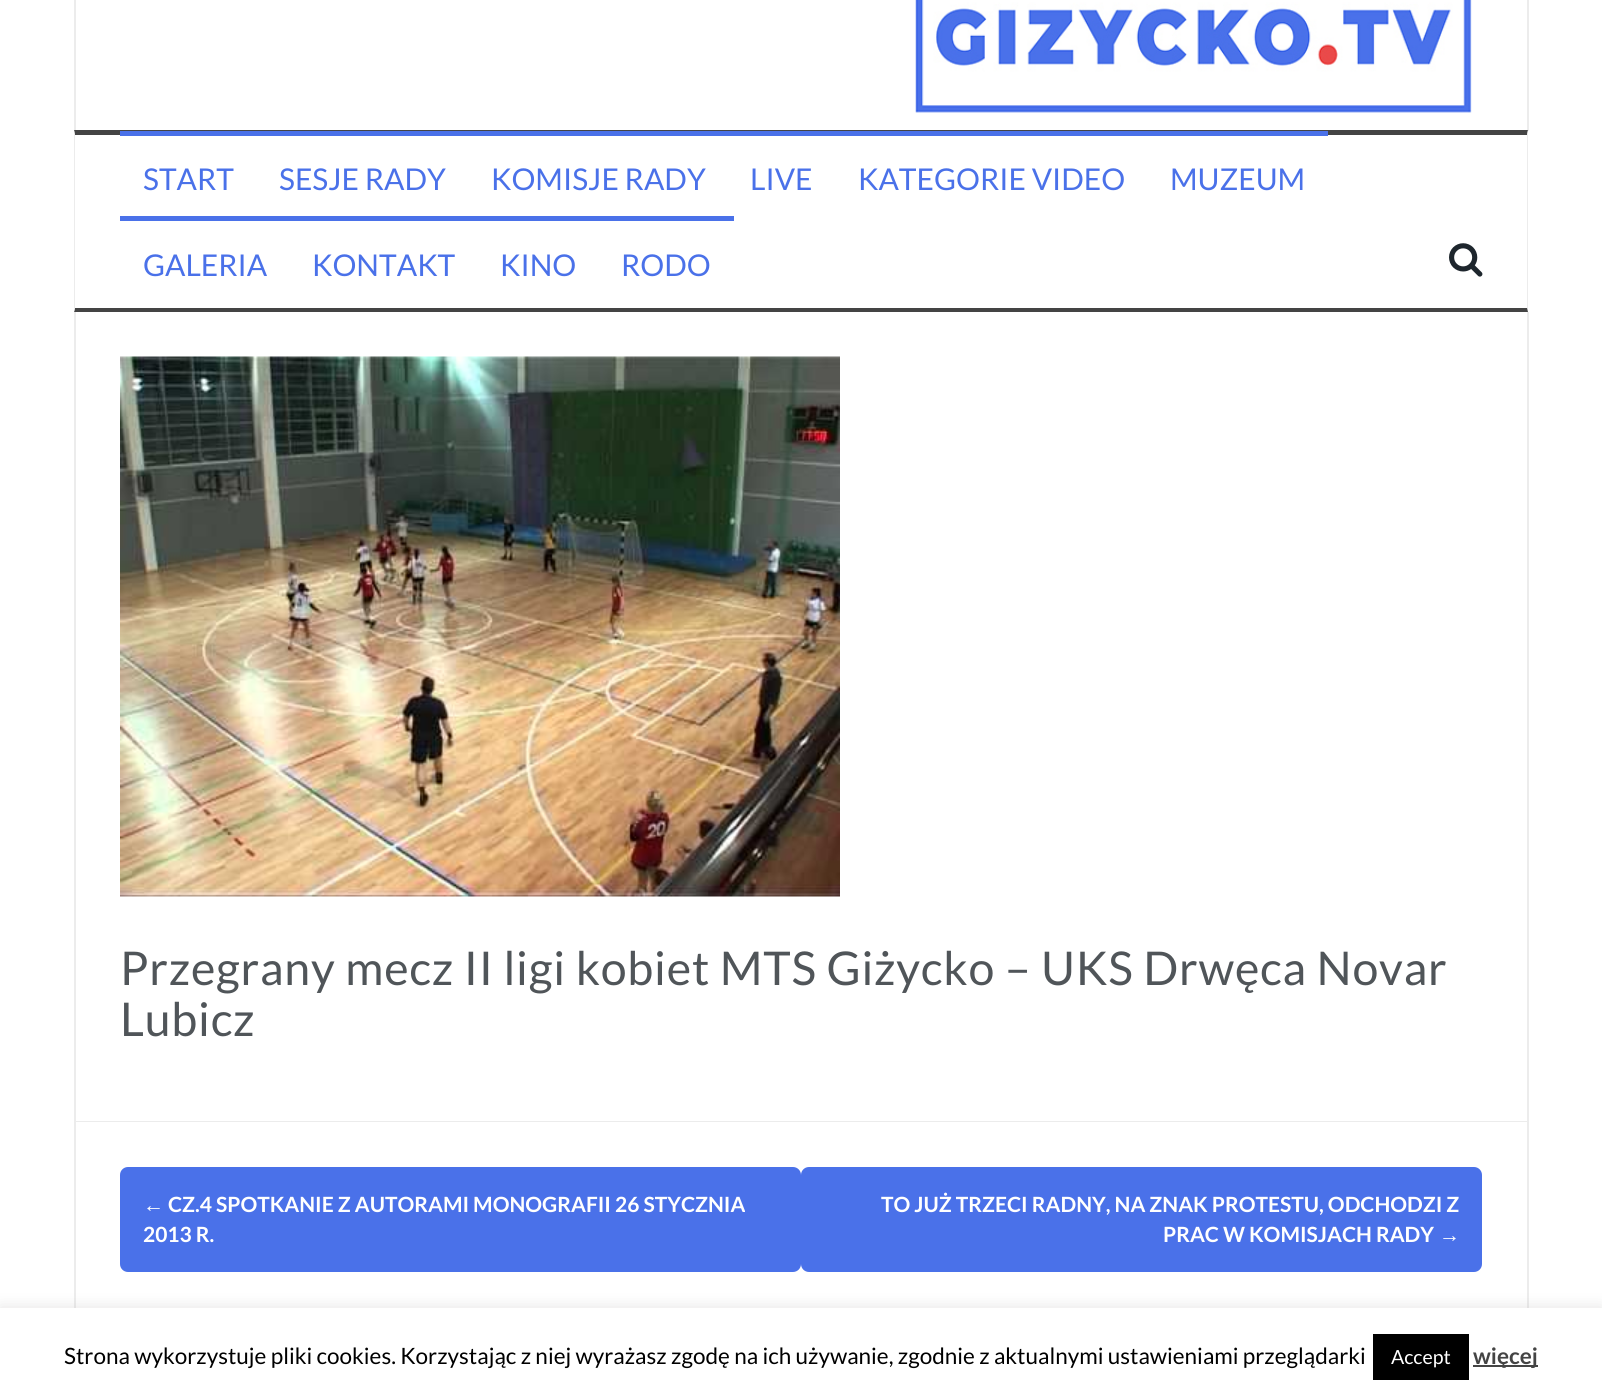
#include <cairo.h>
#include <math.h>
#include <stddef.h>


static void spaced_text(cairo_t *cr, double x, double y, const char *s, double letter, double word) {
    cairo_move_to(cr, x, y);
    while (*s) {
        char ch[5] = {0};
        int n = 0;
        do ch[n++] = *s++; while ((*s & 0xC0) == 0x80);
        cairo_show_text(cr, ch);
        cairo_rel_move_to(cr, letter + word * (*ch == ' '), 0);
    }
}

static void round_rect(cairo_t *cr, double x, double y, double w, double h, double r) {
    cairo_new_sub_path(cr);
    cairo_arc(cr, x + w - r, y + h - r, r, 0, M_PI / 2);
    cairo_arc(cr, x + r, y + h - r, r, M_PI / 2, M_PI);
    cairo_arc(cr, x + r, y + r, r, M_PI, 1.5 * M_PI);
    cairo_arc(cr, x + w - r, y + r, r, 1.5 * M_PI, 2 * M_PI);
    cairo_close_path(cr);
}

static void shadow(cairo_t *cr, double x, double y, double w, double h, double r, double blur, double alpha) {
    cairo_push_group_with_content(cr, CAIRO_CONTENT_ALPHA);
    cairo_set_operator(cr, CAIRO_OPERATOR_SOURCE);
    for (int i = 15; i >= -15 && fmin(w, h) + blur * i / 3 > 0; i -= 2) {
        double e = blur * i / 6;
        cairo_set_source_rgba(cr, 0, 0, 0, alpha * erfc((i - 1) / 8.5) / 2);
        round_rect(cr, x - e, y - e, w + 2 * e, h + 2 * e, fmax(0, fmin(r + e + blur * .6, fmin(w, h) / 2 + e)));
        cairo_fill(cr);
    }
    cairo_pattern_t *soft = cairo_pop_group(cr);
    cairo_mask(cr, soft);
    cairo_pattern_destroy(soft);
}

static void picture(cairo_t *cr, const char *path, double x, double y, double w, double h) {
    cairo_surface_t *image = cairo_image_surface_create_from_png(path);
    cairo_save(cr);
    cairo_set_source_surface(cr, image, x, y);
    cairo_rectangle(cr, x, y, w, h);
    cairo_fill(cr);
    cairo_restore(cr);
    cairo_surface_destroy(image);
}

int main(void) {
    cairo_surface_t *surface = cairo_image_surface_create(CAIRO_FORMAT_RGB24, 1602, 1398);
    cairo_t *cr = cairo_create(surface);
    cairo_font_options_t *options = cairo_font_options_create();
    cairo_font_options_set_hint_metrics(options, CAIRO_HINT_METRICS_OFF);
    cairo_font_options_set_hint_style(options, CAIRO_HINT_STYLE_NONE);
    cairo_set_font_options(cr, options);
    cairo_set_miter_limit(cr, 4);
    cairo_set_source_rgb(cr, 1, 1, 1);
    cairo_paint(cr);
    picture(cr, "img1.png", 915, 0, 557, 113);
    cairo_set_source_rgb(cr, 0.922, 0.922, 0.922);
    cairo_rectangle(cr, 1527, 0, 2, 131);
    cairo_fill(cr);
    cairo_rectangle(cr, 74, 0, 2, 131);
    cairo_fill(cr);
    cairo_set_source_rgb(cr, 0.267, 0.267, 0.267);
    cairo_new_path(cr);
    cairo_move_to(cr, 74, 130);
    cairo_line_to(cr, 1528, 130);
    cairo_line_to(cr, 1527, 135);
    cairo_line_to(cr, 75, 135);
    cairo_close_path(cr);
    cairo_fill(cr);
    cairo_set_source_rgb(cr, 0.922, 0.922, 0.922);
    cairo_new_path(cr);
    cairo_move_to(cr, 1528, 130);
    cairo_line_to(cr, 1528, 312);
    cairo_line_to(cr, 1527, 308);
    cairo_line_to(cr, 1527, 135);
    cairo_close_path(cr);
    cairo_fill(cr);
    cairo_set_source_rgb(cr, 0.267, 0.267, 0.267);
    cairo_new_path(cr);
    cairo_move_to(cr, 1528, 312);
    cairo_line_to(cr, 74, 312);
    cairo_line_to(cr, 75, 308);
    cairo_line_to(cr, 1527, 308);
    cairo_close_path(cr);
    cairo_fill(cr);
    cairo_set_source_rgb(cr, 0.922, 0.922, 0.922);
    cairo_new_path(cr);
    cairo_move_to(cr, 74, 312);
    cairo_line_to(cr, 74, 130);
    cairo_line_to(cr, 75, 135);
    cairo_line_to(cr, 75, 308);
    cairo_close_path(cr);
    cairo_fill(cr);
    cairo_set_source_rgb(cr, 0.29, 0.443, 0.914);
    cairo_rectangle(cr, 120, 131, 1208, 5);
    cairo_fill(cr);
    cairo_select_font_face(cr, "Lato", CAIRO_FONT_SLANT_NORMAL, CAIRO_FONT_WEIGHT_NORMAL);
    cairo_set_font_size(cr, 30);
    cairo_move_to(cr, 143, 190);
    cairo_show_text(cr, "START");
    cairo_move_to(cr, 279, 190);
    cairo_show_text(cr, "SESJE RADY");
    cairo_move_to(cr, 491, 190);
    cairo_show_text(cr, "KOMISJE RADY");
    cairo_move_to(cr, 750, 190);
    cairo_show_text(cr, "LIVE");
    cairo_move_to(cr, 858, 190);
    cairo_show_text(cr, "KATEGORIE VIDEO");
    cairo_move_to(cr, 1170, 190);
    cairo_show_text(cr, "MUZEUM");
    cairo_rectangle(cr, 120, 216, 614, 5);
    cairo_fill(cr);
    cairo_move_to(cr, 143, 276);
    cairo_show_text(cr, "GALERIA");
    cairo_move_to(cr, 312, 276);
    cairo_show_text(cr, "KONTAKT");
    cairo_move_to(cr, 500, 276);
    cairo_show_text(cr, "KINO");
    cairo_move_to(cr, 621, 276);
    cairo_show_text(cr, "RODO");
    picture(cr, "img2.png", 1449, 243, 34, 34);
    cairo_set_source_rgb(cr, 0.922, 0.922, 0.922);
    cairo_rectangle(cr, 1527, 312, 2, 996);
    cairo_fill(cr);
    cairo_rectangle(cr, 74, 1121, 1455, 1);
    cairo_fill(cr);
    cairo_rectangle(cr, 74, 312, 2, 996);
    cairo_fill(cr);
    picture(cr, "img3.png", 120, 356, 720, 541);
    cairo_set_font_size(cr, 46.5);
    cairo_set_source_rgb(cr, 0.314, 0.333, 0.349);
    spaced_text(cr, 120, 985, "Przegrany mecz II ligi kobiet MTS Giżycko – UKS Drwęca Novar", 0.75, 0);
    spaced_text(cr, 120, 1036, "Lubicz", 0.75, 0);
    cairo_set_source_rgb(cr, 0.29, 0.443, 0.914);
    round_rect(cr, 120, 1167, 681, 105, 8);
    cairo_fill(cr);
    cairo_select_font_face(cr, "Liberation Sans", CAIRO_FONT_SLANT_NORMAL, CAIRO_FONT_WEIGHT_BOLD);
    cairo_set_font_size(cr, 21);
    cairo_set_source_rgb(cr, 1, 1, 1);
    cairo_move_to(cr, 143, 1212);
    cairo_show_text(cr, "←");
    cairo_select_font_face(cr, "Lato", CAIRO_FONT_SLANT_NORMAL, CAIRO_FONT_WEIGHT_BOLD);
    cairo_move_to(cr, 168, 1212);
    cairo_show_text(cr, "CZ.4 SPOTKANIE Z AUTORAMI MONOGRAFII 26 STYCZNIA");
    cairo_move_to(cr, 143, 1242);
    cairo_show_text(cr, "2013 R.");
    cairo_set_source_rgb(cr, 0.29, 0.443, 0.914);
    round_rect(cr, 801, 1167, 681, 105, 8);
    cairo_fill(cr);
    cairo_set_source_rgb(cr, 1, 1, 1);
    cairo_move_to(cr, 881, 1212);
    cairo_show_text(cr, "TO JUŻ TRZECI RADNY, NA ZNAK PROTESTU, ODCHODZI Z");
    cairo_move_to(cr, 1163, 1242);
    cairo_show_text(cr, "PRAC W KOMISJACH RADY");
    cairo_select_font_face(cr, "Liberation Sans", CAIRO_FONT_SLANT_NORMAL, CAIRO_FONT_WEIGHT_BOLD);
    cairo_move_to(cr, 1439, 1242);
    cairo_show_text(cr, "→");
    cairo_set_source_rgb(cr, 0.675, 0.671, 0.671);
    shadow(cr, 0, 1307, 1602, 90, 0, 7.5, 0.3);
    cairo_set_source_rgb(cr, 1, 1, 1);
    cairo_rectangle(cr, 0, 1308, 1602, 90);
    cairo_fill(cr);
    cairo_select_font_face(cr, "Lato", CAIRO_FONT_SLANT_NORMAL, CAIRO_FONT_WEIGHT_NORMAL);
    cairo_set_font_size(cr, 22.5);
    cairo_set_source_rgb(cr, 0, 0, 0);
    cairo_move_to(cr, 64, 1364);
    cairo_show_text(cr, "Strona wykorzystuje pliki cookies. Korzystając z niej wyrażasz zgodę na ich używanie, zgodnie z aktualnymi ustawieniami przeglądarki");
    cairo_rectangle(cr, 1373, 1334, 96, 46);
    cairo_fill(cr);
    cairo_set_font_size(cr, 19.5);
    cairo_set_source_rgb(cr, 1, 1, 1);
    cairo_move_to(cr, 1391, 1364);
    cairo_show_text(cr, "Accept");
    cairo_set_source_rgb(cr, 0.267, 0.267, 0.267);
    cairo_rectangle(cr, 1473, 1365, 65, 2);
    cairo_fill(cr);
    cairo_select_font_face(cr, "Lato", CAIRO_FONT_SLANT_NORMAL, CAIRO_FONT_WEIGHT_BOLD);
    cairo_set_font_size(cr, 22.5);
    cairo_move_to(cr, 1473, 1364);
    cairo_show_text(cr, "więcej");
    cairo_surface_write_to_png(surface, "page.png");
    cairo_font_options_destroy(options);
    cairo_destroy(cr);
    cairo_surface_destroy(surface);
    return 0;
}
